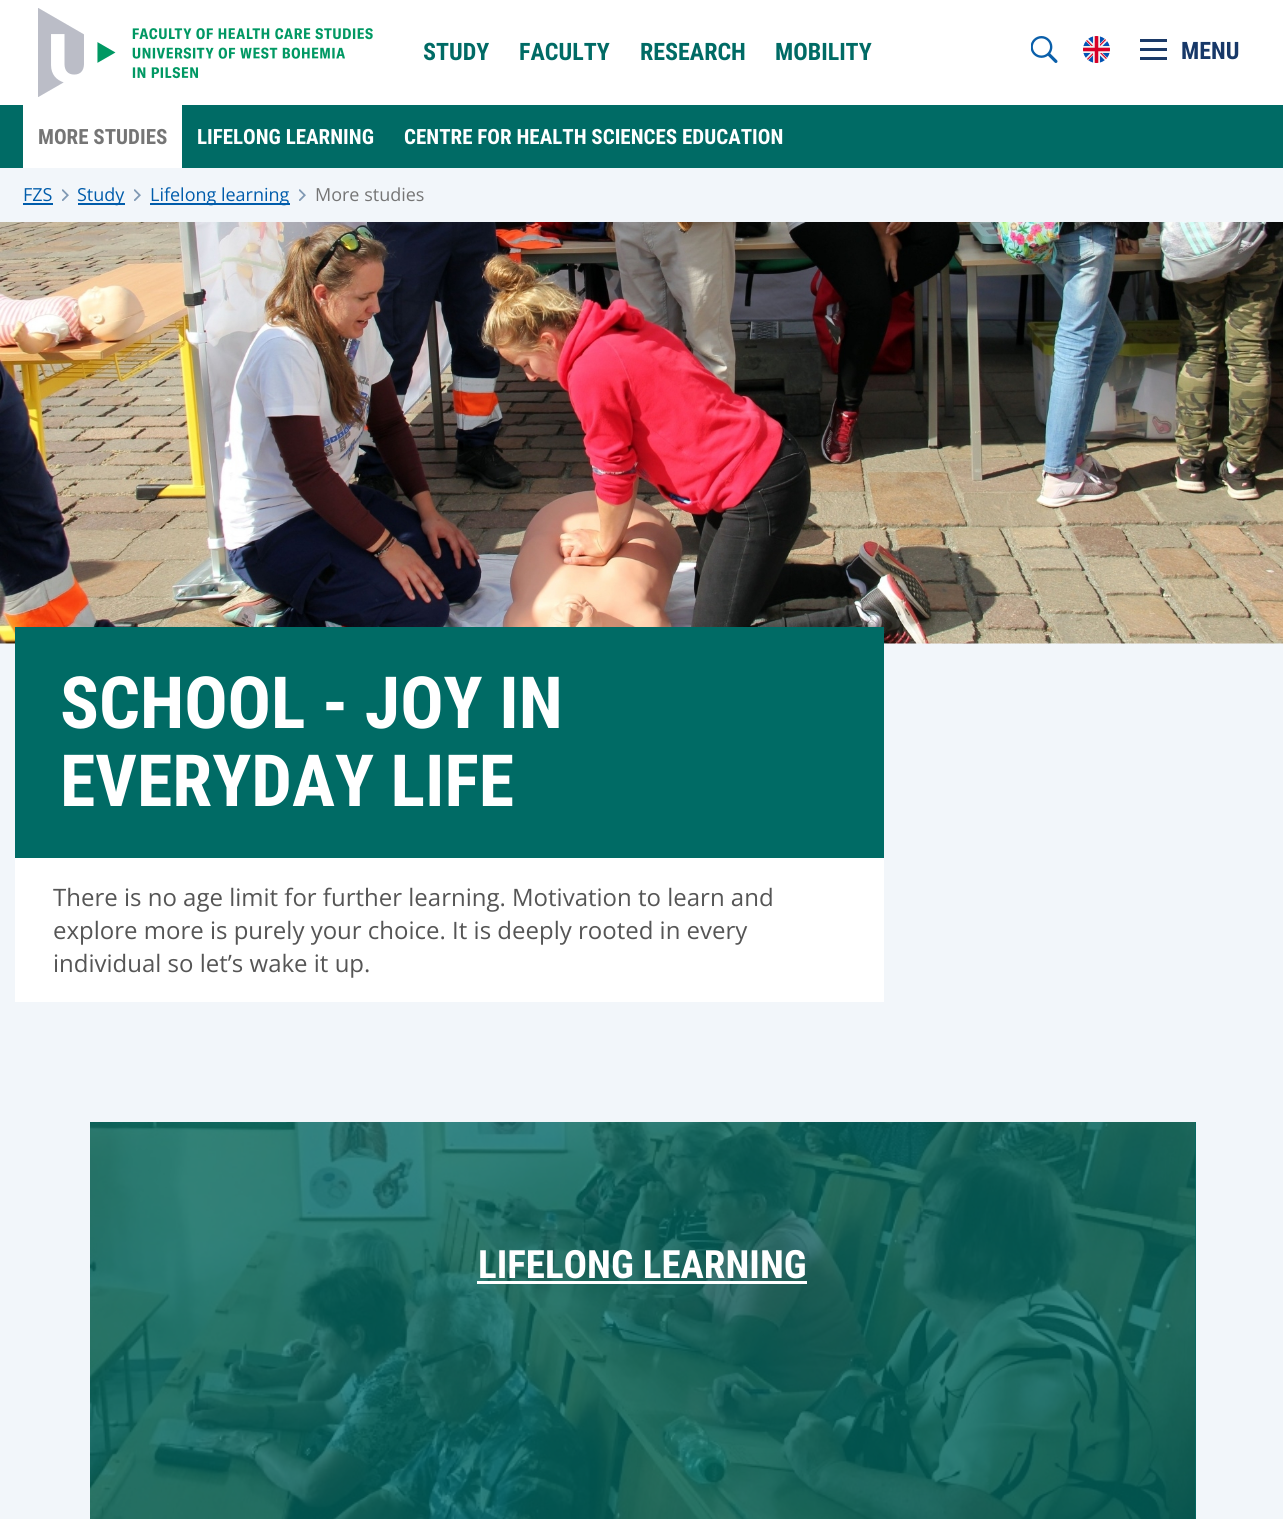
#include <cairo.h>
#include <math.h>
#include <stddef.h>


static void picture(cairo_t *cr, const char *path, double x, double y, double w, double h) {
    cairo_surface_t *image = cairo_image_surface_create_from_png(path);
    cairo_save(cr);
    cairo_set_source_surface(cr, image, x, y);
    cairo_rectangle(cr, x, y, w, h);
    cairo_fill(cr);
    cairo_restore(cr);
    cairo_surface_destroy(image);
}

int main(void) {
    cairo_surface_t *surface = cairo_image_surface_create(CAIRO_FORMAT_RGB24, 1283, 1519);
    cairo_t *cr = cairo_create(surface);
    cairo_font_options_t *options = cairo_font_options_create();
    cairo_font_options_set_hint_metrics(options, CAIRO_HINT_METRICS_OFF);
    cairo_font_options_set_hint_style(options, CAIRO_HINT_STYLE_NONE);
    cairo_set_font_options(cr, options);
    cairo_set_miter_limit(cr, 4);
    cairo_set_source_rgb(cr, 0.949, 0.961, 0.98);
    cairo_paint(cr);
    cairo_set_source_rgb(cr, 1, 1, 1);
    cairo_rectangle(cr, 0, 0, 1283, 105);
    cairo_fill(cr);
    picture(cr, "img1.png", 38, 8, 335, 89);
    cairo_select_font_face(cr, "Roboto Condensed", CAIRO_FONT_SLANT_NORMAL, CAIRO_FONT_WEIGHT_BOLD);
    cairo_set_font_size(cr, 24);
    cairo_set_source_rgb(cr, 0, 0.42, 0.396);
    cairo_move_to(cr, 423, 60);
    cairo_show_text(cr, "STUDY");
    cairo_move_to(cr, 519, 60);
    cairo_show_text(cr, "FACULTY");
    cairo_move_to(cr, 640, 60);
    cairo_show_text(cr, "RESEARCH");
    cairo_move_to(cr, 775, 60);
    cairo_show_text(cr, "MOBILITY");
    picture(cr, "img2.png", 1031, 36, 27, 27);
    picture(cr, "img3.png", 1083, 36, 27, 27);
    cairo_set_source_rgb(cr, 0.09, 0.22, 0.408);
    cairo_move_to(cr, 1181, 59);
    cairo_show_text(cr, "MENU");
    cairo_set_source_rgb(cr, 0.106, 0.227, 0.408);
    cairo_rectangle(cr, 1140, 39, 27, 3);
    cairo_fill(cr);
    cairo_rectangle(cr, 1140, 48, 27, 3);
    cairo_fill(cr);
    cairo_rectangle(cr, 1140, 57, 27, 3);
    cairo_fill(cr);
    cairo_set_source_rgb(cr, 0, 0.42, 0.396);
    cairo_rectangle(cr, 0, 105, 1283, 63);
    cairo_fill(cr);
    cairo_set_source_rgb(cr, 1, 1, 1);
    cairo_rectangle(cr, 23, 105, 159, 63);
    cairo_fill(cr);
    cairo_set_font_size(cr, 21);
    cairo_set_source_rgb(cr, 0.459, 0.459, 0.459);
    cairo_move_to(cr, 38, 144);
    cairo_show_text(cr, "MORE STUDIES");
    cairo_set_source_rgb(cr, 1, 1, 1);
    cairo_move_to(cr, 197, 144);
    cairo_show_text(cr, "LIFELONG LEARNING");
    cairo_move_to(cr, 404, 144);
    cairo_show_text(cr, "CENTRE FOR HEALTH SCIENCES EDUCATION");
    picture(cr, "img4.png", 62, 189, 7, 12);
    cairo_select_font_face(cr, "Open Sans", CAIRO_FONT_SLANT_NORMAL, CAIRO_FONT_WEIGHT_NORMAL);
    cairo_set_font_size(cr, 18);
    cairo_set_source_rgb(cr, 0, 0.361, 0.671);
    cairo_move_to(cr, 23, 201);
    cairo_show_text(cr, "FZS");
    cairo_rectangle(cr, 23, 203, 30, 2);
    cairo_fill(cr);
    picture(cr, "img4.png", 134, 189, 7, 12);
    cairo_rectangle(cr, 78, 203, 47, 2);
    cairo_fill(cr);
    cairo_move_to(cr, 77, 201);
    cairo_show_text(cr, "Study");
    picture(cr, "img4.png", 299, 189, 7, 12);
    cairo_rectangle(cr, 150, 203, 140, 2);
    cairo_fill(cr);
    cairo_move_to(cr, 150, 201);
    cairo_show_text(cr, "Lifelong learning");
    cairo_set_source_rgb(cr, 0.459, 0.459, 0.459);
    cairo_move_to(cr, 315, 201);
    cairo_show_text(cr, "More studies");
    picture(cr, "img5.png", 0, 222, 1283, 422);
    cairo_set_source_rgb(cr, 0, 0.42, 0.396);
    cairo_rectangle(cr, 15, 627, 869, 231);
    cairo_fill(cr);
    cairo_select_font_face(cr, "Roboto Condensed", CAIRO_FONT_SLANT_NORMAL, CAIRO_FONT_WEIGHT_BOLD);
    cairo_set_font_size(cr, 72);
    cairo_set_source_rgb(cr, 1, 1, 1);
    cairo_move_to(cr, 60, 728);
    cairo_show_text(cr, "SCHOOL - JOY IN");
    cairo_move_to(cr, 60, 806);
    cairo_show_text(cr, "EVERYDAY LIFE");
    cairo_rectangle(cr, 15, 858, 869, 144);
    cairo_fill(cr);
    cairo_select_font_face(cr, "Open Sans", CAIRO_FONT_SLANT_NORMAL, CAIRO_FONT_WEIGHT_NORMAL);
    cairo_set_font_size(cr, 24);
    cairo_set_source_rgb(cr, 0.333, 0.333, 0.333);
    cairo_move_to(cr, 53, 906);
    cairo_show_text(cr, "There is no age limit for further learning. Motivation to learn and");
    cairo_move_to(cr, 53, 939);
    cairo_show_text(cr, "explore more is purely your choice. It is deeply rooted in every");
    cairo_move_to(cr, 53, 972);
    cairo_show_text(cr, "individual so let’s wake it up.");
    cairo_set_source_rgb(cr, 0, 0.42, 0.396);
    cairo_rectangle(cr, 90, 1122, 1106, 397);
    cairo_fill(cr);
    picture(cr, "img6.png", 90, 1122, 1106, 397);
    cairo_select_font_face(cr, "Roboto Condensed", CAIRO_FONT_SLANT_NORMAL, CAIRO_FONT_WEIGHT_BOLD);
    cairo_set_font_size(cr, 39);
    cairo_set_source_rgb(cr, 1, 1, 1);
    cairo_move_to(cr, 478, 1278);
    cairo_show_text(cr, "LIFELONG LEARNING");
    cairo_rectangle(cr, 477, 1281, 330, 3);
    cairo_fill(cr);
    cairo_surface_write_to_png(surface, "page.png");
    cairo_font_options_destroy(options);
    cairo_destroy(cr);
    cairo_surface_destroy(surface);
    return 0;
}
